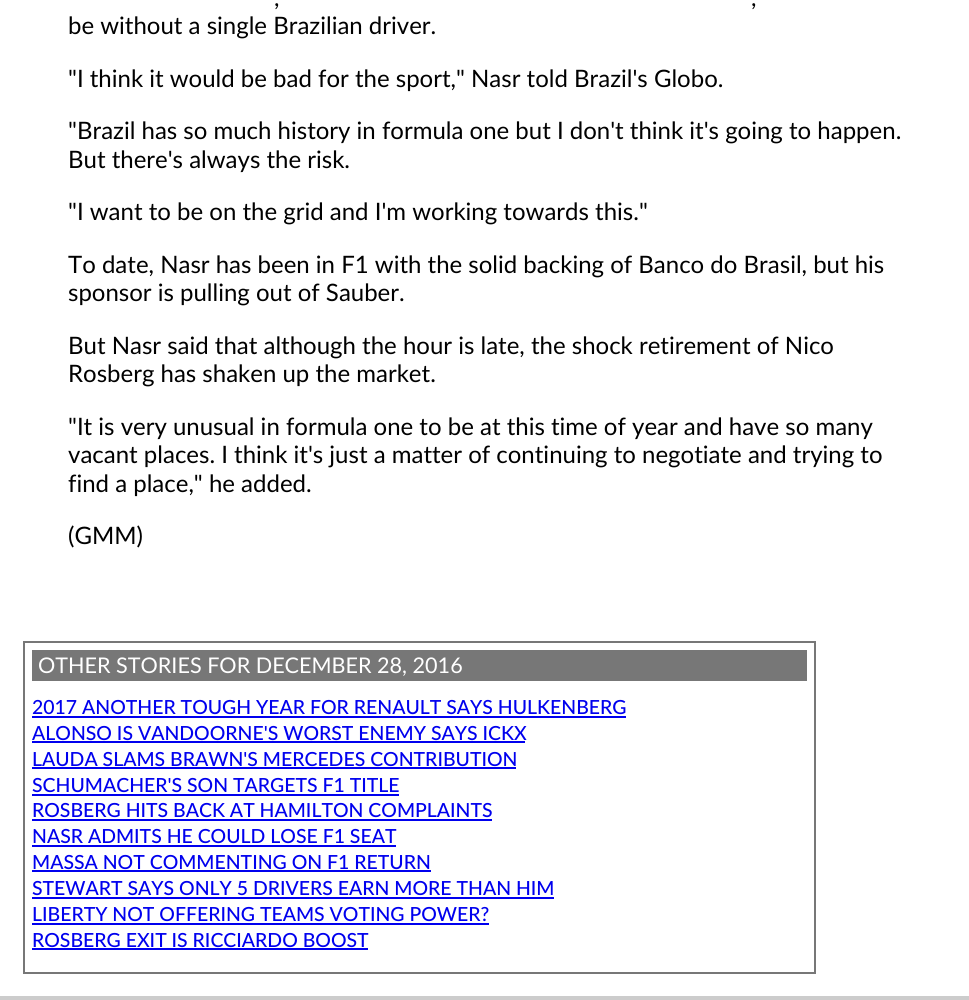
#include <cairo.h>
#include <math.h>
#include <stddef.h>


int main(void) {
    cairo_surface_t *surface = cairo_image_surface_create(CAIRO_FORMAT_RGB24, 969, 1000);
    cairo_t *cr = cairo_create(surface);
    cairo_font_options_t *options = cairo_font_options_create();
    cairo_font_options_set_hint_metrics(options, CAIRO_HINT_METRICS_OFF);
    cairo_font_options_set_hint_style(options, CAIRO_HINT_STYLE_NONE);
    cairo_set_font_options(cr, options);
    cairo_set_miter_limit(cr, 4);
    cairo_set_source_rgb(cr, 1, 1, 1);
    cairo_paint(cr);
    cairo_select_font_face(cr, "Lato", CAIRO_FONT_SLANT_NORMAL, CAIRO_FONT_WEIGHT_NORMAL);
    cairo_set_font_size(cr, 24);
    cairo_set_source_rgb(cr, 0, 0, 0);
    cairo_move_to(cr, 274, 6);
    cairo_show_text(cr, ",");
    cairo_move_to(cr, 751, 6);
    cairo_show_text(cr, ",");
    cairo_move_to(cr, 68, 34);
    cairo_show_text(cr, "be without a single Brazilian driver.");
    cairo_move_to(cr, 68, 87);
    cairo_show_text(cr, "\"I think it would be bad for the sport,\" Nasr told Brazil's Globo.");
    cairo_move_to(cr, 68, 139);
    cairo_show_text(cr, "\"Brazil has so much history in formula one but I don't think it's going to happen.");
    cairo_move_to(cr, 68, 168);
    cairo_show_text(cr, "But there's always the risk.");
    cairo_move_to(cr, 68, 220);
    cairo_show_text(cr, "\"I want to be on the grid and I'm working towards this.\"");
    cairo_move_to(cr, 68, 273);
    cairo_show_text(cr, "To date, Nasr has been in F1 with the solid backing of Banco do Brasil, but his");
    cairo_move_to(cr, 68, 301);
    cairo_show_text(cr, "sponsor is pulling out of Sauber.");
    cairo_move_to(cr, 68, 354);
    cairo_show_text(cr, "But Nasr said that although the hour is late, the shock retirement of Nico");
    cairo_move_to(cr, 68, 382);
    cairo_show_text(cr, "Rosberg has shaken up the market.");
    cairo_move_to(cr, 68, 435);
    cairo_show_text(cr, "\"It is very unusual in formula one to be at this time of year and have so many");
    cairo_move_to(cr, 68, 463);
    cairo_show_text(cr, "vacant places. I think it's just a matter of continuing to negotiate and trying to");
    cairo_move_to(cr, 68, 492);
    cairo_show_text(cr, "find a place,\" he added.");
    cairo_move_to(cr, 68, 544);
    cairo_show_text(cr, "(GMM)");
    cairo_rectangle(cr, 24, 642, 791, 331);
    cairo_set_source_rgb(cr, 0.467, 0.467, 0.467);
    cairo_stroke(cr);
    cairo_rectangle(cr, 32, 650, 775, 31);
    cairo_fill(cr);
    cairo_set_font_size(cr, 21.6);
    cairo_set_source_rgb(cr, 1, 1, 1);
    cairo_move_to(cr, 38, 673);
    cairo_show_text(cr, "OTHER STORIES FOR DECEMBER 28, 2016");
    cairo_select_font_face(cr, "Lato Medium", CAIRO_FONT_SLANT_NORMAL, CAIRO_FONT_WEIGHT_NORMAL);
    cairo_set_font_size(cr, 19.45);
    cairo_set_source_rgb(cr, 0, 0, 0.933);
    cairo_move_to(cr, 32, 714);
    cairo_show_text(cr, "2017 ANOTHER TOUGH YEAR FOR RENAULT SAYS HULKENBERG");
    cairo_rectangle(cr, 32, 716, 594, 2);
    cairo_fill(cr);
    cairo_move_to(cr, 32, 740);
    cairo_show_text(cr, "ALONSO IS VANDOORNE'S WORST ENEMY SAYS ICKX");
    cairo_rectangle(cr, 32, 741, 493, 2);
    cairo_fill(cr);
    cairo_move_to(cr, 32, 766);
    cairo_show_text(cr, "LAUDA SLAMS BRAWN'S MERCEDES CONTRIBUTION");
    cairo_rectangle(cr, 32, 767, 484, 2);
    cairo_fill(cr);
    cairo_move_to(cr, 32, 792);
    cairo_show_text(cr, "SCHUMACHER'S SON TARGETS F1 TITLE");
    cairo_rectangle(cr, 32, 794, 367, 2);
    cairo_fill(cr);
    cairo_move_to(cr, 32, 817);
    cairo_show_text(cr, "ROSBERG HITS BACK AT HAMILTON COMPLAINTS");
    cairo_rectangle(cr, 32, 819, 460, 2);
    cairo_fill(cr);
    cairo_move_to(cr, 32, 843);
    cairo_show_text(cr, "NASR ADMITS HE COULD LOSE F1 SEAT");
    cairo_rectangle(cr, 32, 845, 364, 2);
    cairo_fill(cr);
    cairo_move_to(cr, 32, 869);
    cairo_show_text(cr, "MASSA NOT COMMENTING ON F1 RETURN");
    cairo_rectangle(cr, 32, 870, 399, 2);
    cairo_fill(cr);
    cairo_move_to(cr, 32, 895);
    cairo_show_text(cr, "STEWART SAYS ONLY 5 DRIVERS EARN MORE THAN HIM");
    cairo_rectangle(cr, 32, 897, 522, 2);
    cairo_fill(cr);
    cairo_move_to(cr, 32, 921);
    cairo_show_text(cr, "LIBERTY NOT OFFERING TEAMS VOTING POWER?");
    cairo_rectangle(cr, 32, 923, 457, 2);
    cairo_fill(cr);
    cairo_move_to(cr, 32, 947);
    cairo_show_text(cr, "ROSBERG EXIT IS RICCIARDO BOOST");
    cairo_rectangle(cr, 32, 948, 336, 2);
    cairo_fill(cr);
    cairo_set_source_rgb(cr, 0.8, 0.8, 0.8);
    cairo_rectangle(cr, 0, 996, 969, 4);
    cairo_fill(cr);
    cairo_surface_write_to_png(surface, "page.png");
    cairo_font_options_destroy(options);
    cairo_destroy(cr);
    cairo_surface_destroy(surface);
    return 0;
}
